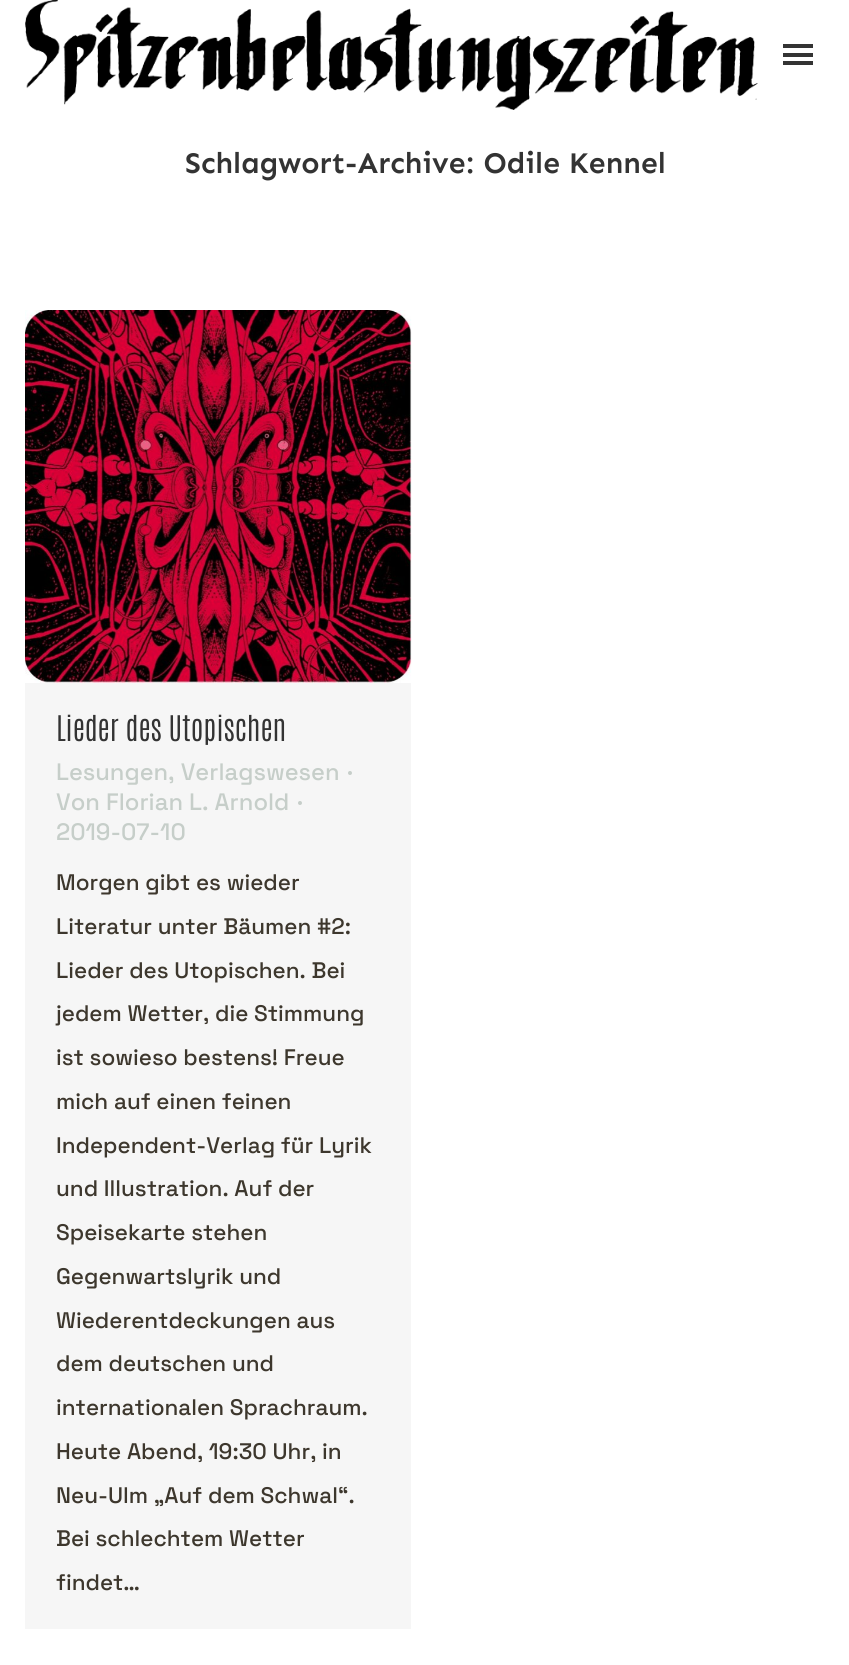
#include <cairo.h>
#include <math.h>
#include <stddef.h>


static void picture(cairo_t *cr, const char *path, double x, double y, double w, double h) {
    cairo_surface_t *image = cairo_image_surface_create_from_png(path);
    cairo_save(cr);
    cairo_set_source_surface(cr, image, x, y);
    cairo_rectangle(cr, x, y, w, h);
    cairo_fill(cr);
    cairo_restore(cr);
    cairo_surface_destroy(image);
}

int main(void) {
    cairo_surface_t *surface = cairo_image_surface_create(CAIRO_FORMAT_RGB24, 849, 1665);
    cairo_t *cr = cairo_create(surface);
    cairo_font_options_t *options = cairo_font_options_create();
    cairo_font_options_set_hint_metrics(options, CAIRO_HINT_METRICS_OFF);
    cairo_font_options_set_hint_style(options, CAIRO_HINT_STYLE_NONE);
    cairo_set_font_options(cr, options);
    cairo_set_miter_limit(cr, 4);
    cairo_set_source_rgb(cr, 1, 1, 1);
    cairo_paint(cr);
    picture(cr, "img1.png", 25, 0, 733, 110);
    cairo_set_source_rgb(cr, 0.2, 0.2, 0.2);
    cairo_rectangle(cr, 783, 44, 30, 4);
    cairo_fill(cr);
    cairo_rectangle(cr, 783, 53, 30, 4);
    cairo_fill(cr);
    cairo_rectangle(cr, 783, 61, 30, 4);
    cairo_fill(cr);
    cairo_select_font_face(cr, "Sen SemiBold", CAIRO_FONT_SLANT_NORMAL, CAIRO_FONT_WEIGHT_NORMAL);
    cairo_set_font_size(cr, 30);
    cairo_move_to(cr, 185, 173);
    cairo_show_text(cr, "Schlagwort-Archive: Odile Kennel");
    cairo_set_source_rgb(cr, 0.961, 0.961, 0.961);
    cairo_rectangle(cr, 25, 683, 386, 946);
    cairo_fill(cr);
    picture(cr, "img2.png", 25, 310, 387, 373);
    cairo_select_font_face(cr, "Antonio ExtraLight", CAIRO_FONT_SLANT_NORMAL, CAIRO_FONT_WEIGHT_NORMAL);
    cairo_set_source_rgb(cr, 0.2, 0.2, 0.2);
    cairo_move_to(cr, 56, 741);
    cairo_show_text(cr, "Lieder des Utopischen");
    cairo_select_font_face(cr, "Space Grotesk Medium", CAIRO_FONT_SLANT_NORMAL, CAIRO_FONT_WEIGHT_NORMAL);
    cairo_set_font_size(cr, 23.75);
    cairo_set_source_rgb(cr, 0.776, 0.808, 0.788);
    cairo_move_to(cr, 56, 780);
    cairo_show_text(cr, "Lesungen, Verlagswesen");
    cairo_new_path(cr);
    cairo_arc(cr, 350, 773, 2, 0, 2 * M_PI);
    cairo_fill(cr);
    cairo_move_to(cr, 56, 810);
    cairo_show_text(cr, "Von Florian L. Arnold");
    cairo_new_path(cr);
    cairo_arc(cr, 300, 803, 2, 0, 2 * M_PI);
    cairo_fill(cr);
    cairo_move_to(cr, 56, 840);
    cairo_show_text(cr, "2019-07-10");
    cairo_set_font_size(cr, 22.5);
    cairo_set_source_rgb(cr, 0.239, 0.216, 0.176);
    cairo_move_to(cr, 56, 890);
    cairo_show_text(cr, "Morgen gibt es wieder");
    cairo_move_to(cr, 56, 934);
    cairo_show_text(cr, "Literatur unter Bäumen #2:");
    cairo_move_to(cr, 56, 978);
    cairo_show_text(cr, "Lieder des Utopischen. Bei");
    cairo_move_to(cr, 56, 1021);
    cairo_show_text(cr, "jedem Wetter, die Stimmung");
    cairo_move_to(cr, 56, 1065);
    cairo_show_text(cr, "ist sowieso bestens! Freue");
    cairo_move_to(cr, 56, 1109);
    cairo_show_text(cr, "mich auf einen feinen");
    cairo_move_to(cr, 56, 1153);
    cairo_show_text(cr, "Independent-Verlag für Lyrik");
    cairo_move_to(cr, 56, 1196);
    cairo_show_text(cr, "und Illustration. Auf der");
    cairo_move_to(cr, 56, 1240);
    cairo_show_text(cr, "Speisekarte stehen");
    cairo_move_to(cr, 56, 1284);
    cairo_show_text(cr, "Gegenwartslyrik und");
    cairo_move_to(cr, 56, 1328);
    cairo_show_text(cr, "Wiederentdeckungen aus");
    cairo_move_to(cr, 56, 1371);
    cairo_show_text(cr, "dem deutschen und");
    cairo_move_to(cr, 56, 1415);
    cairo_show_text(cr, "internationalen Sprachraum.");
    cairo_move_to(cr, 56, 1459);
    cairo_show_text(cr, "Heute Abend, 19:30 Uhr, in");
    cairo_move_to(cr, 56, 1503);
    cairo_show_text(cr, "Neu-Ulm „Auf dem Schwal“.");
    cairo_move_to(cr, 56, 1546);
    cairo_show_text(cr, "Bei schlechtem Wetter");
    cairo_move_to(cr, 56, 1590);
    cairo_show_text(cr, "findet…");
    cairo_surface_write_to_png(surface, "page.png");
    cairo_font_options_destroy(options);
    cairo_destroy(cr);
    cairo_surface_destroy(surface);
    return 0;
}
